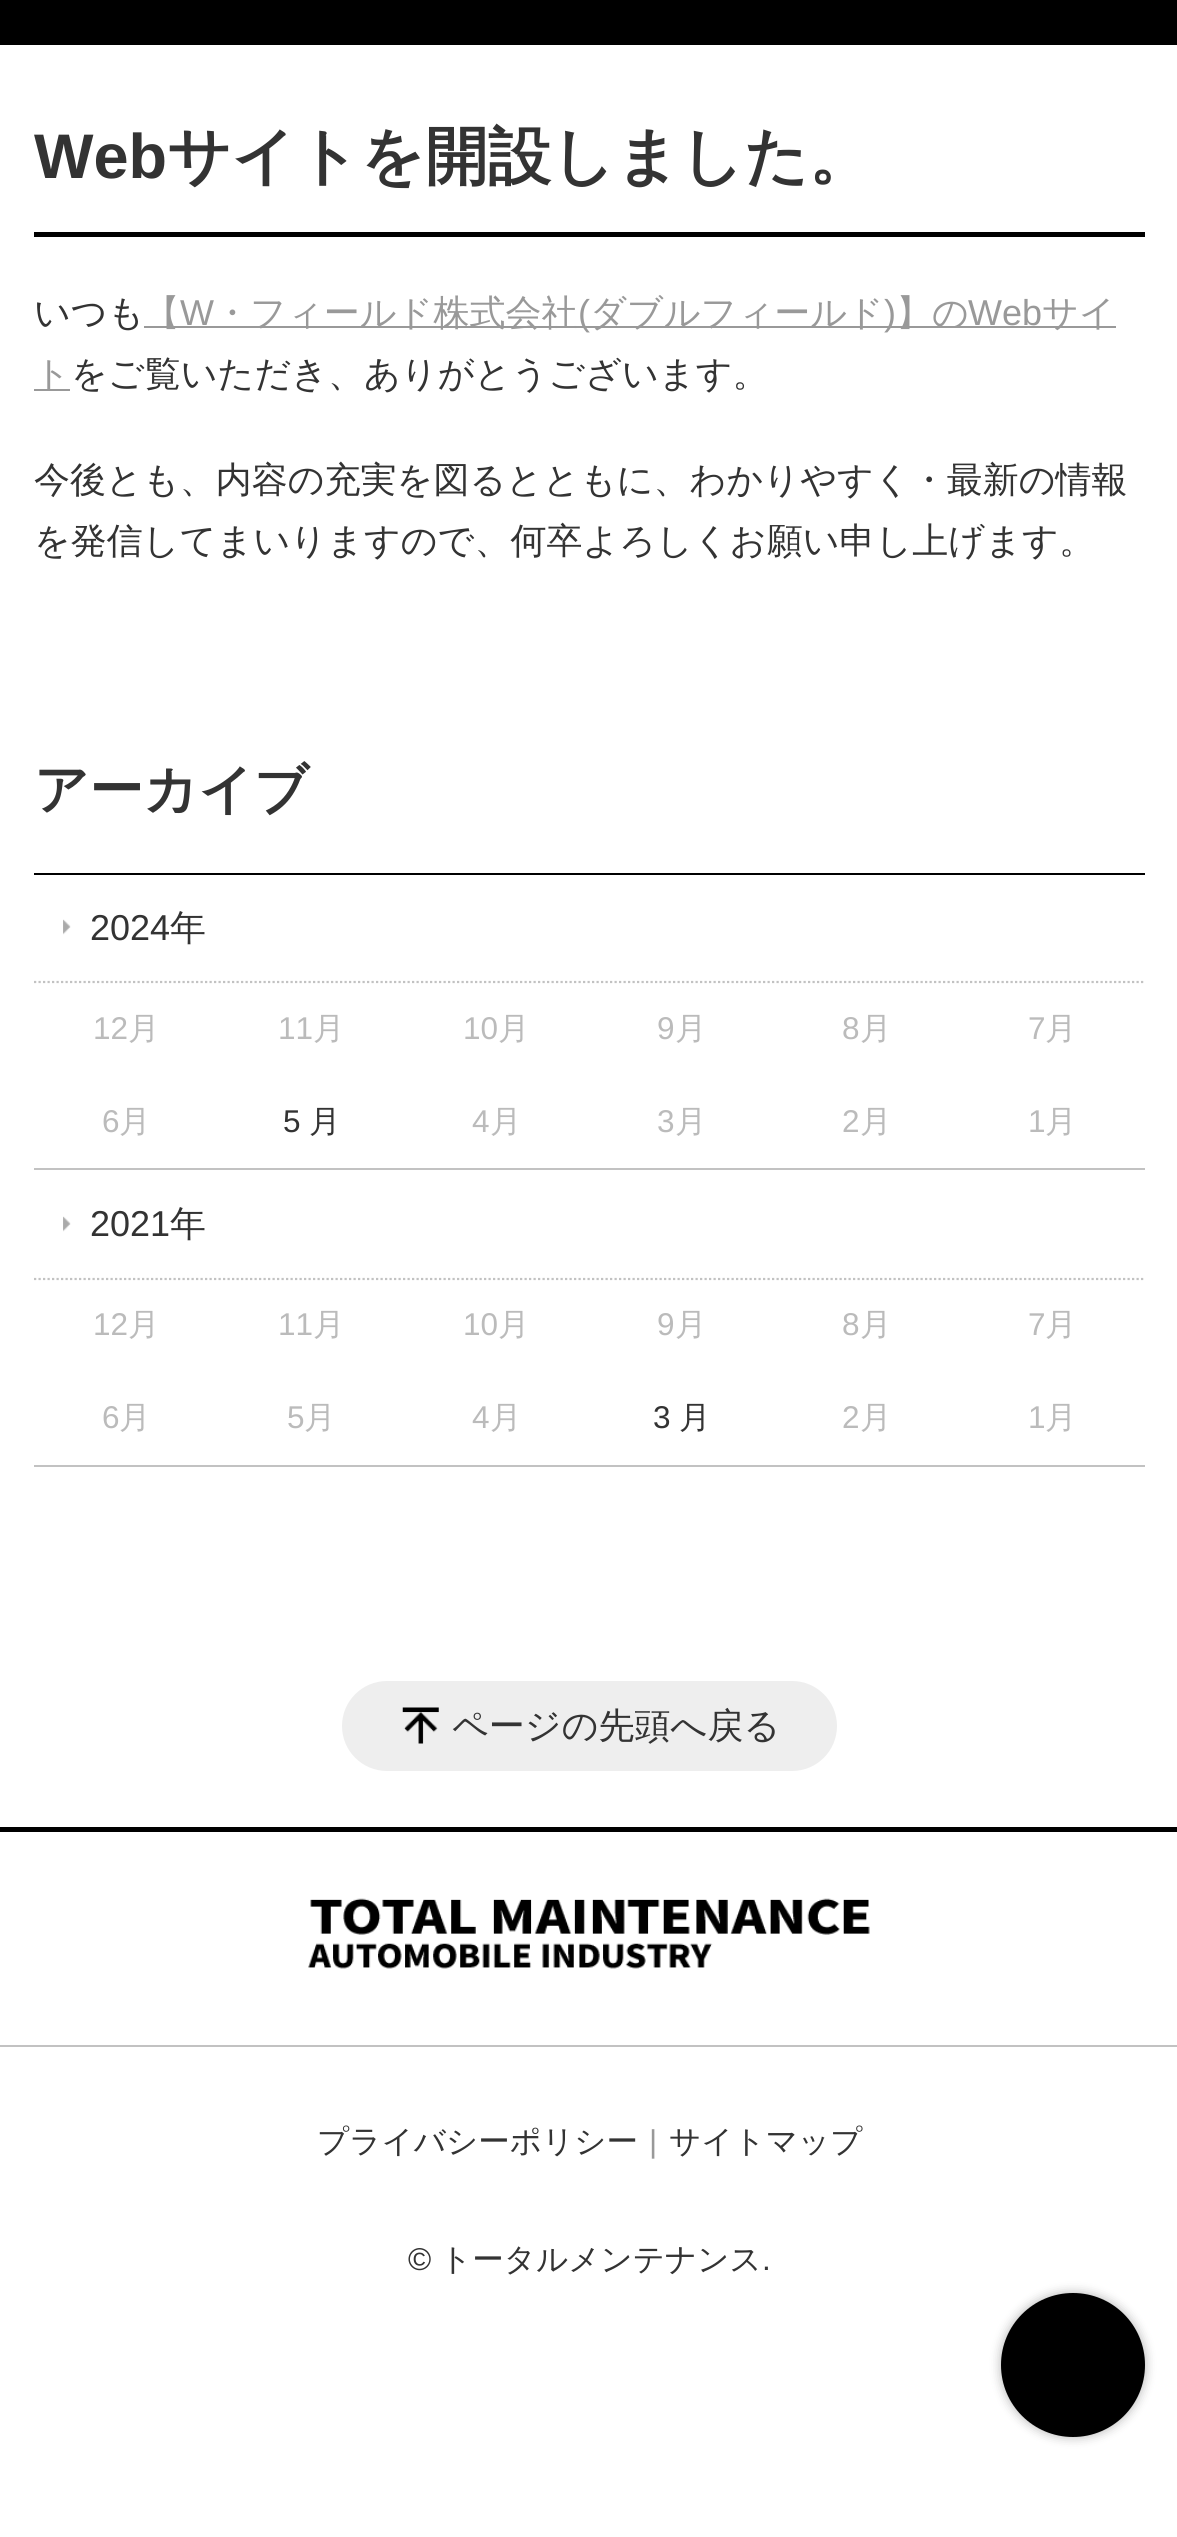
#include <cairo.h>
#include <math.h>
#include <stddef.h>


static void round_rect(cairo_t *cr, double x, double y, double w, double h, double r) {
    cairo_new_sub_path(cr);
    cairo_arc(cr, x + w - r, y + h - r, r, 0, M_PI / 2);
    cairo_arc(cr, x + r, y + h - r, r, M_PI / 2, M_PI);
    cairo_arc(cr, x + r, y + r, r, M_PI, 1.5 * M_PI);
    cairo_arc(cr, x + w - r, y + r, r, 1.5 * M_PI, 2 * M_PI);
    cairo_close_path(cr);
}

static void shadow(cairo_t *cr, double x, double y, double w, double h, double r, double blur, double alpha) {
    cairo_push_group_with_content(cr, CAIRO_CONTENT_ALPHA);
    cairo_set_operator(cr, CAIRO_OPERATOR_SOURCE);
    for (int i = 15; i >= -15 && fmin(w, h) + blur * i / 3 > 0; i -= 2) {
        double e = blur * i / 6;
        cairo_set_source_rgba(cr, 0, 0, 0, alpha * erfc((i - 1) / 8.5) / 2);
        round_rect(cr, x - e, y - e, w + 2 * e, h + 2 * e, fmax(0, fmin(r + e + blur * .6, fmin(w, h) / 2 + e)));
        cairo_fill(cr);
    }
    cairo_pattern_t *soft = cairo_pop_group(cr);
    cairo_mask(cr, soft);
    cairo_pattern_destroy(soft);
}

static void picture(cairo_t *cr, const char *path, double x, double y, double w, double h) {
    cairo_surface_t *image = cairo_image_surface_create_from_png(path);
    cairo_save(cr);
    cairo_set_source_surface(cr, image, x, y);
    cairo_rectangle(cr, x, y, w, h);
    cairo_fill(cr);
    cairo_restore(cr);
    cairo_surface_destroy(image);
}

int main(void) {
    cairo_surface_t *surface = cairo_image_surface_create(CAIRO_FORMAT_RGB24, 1177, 2537);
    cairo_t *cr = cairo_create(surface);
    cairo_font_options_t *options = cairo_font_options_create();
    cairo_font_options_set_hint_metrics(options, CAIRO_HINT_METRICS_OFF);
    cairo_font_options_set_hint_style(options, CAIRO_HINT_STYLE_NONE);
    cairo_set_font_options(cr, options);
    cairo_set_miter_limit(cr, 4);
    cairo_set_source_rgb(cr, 1, 1, 1);
    cairo_paint(cr);
    cairo_set_source_rgb(cr, 0, 0, 0);
    cairo_rectangle(cr, 0, 0, 1177, 45);
    cairo_fill(cr);
    cairo_rectangle(cr, 34, 232, 1111, 5);
    cairo_fill(cr);
    cairo_select_font_face(cr, "Liberation Sans", CAIRO_FONT_SLANT_NORMAL, CAIRO_FONT_WEIGHT_BOLD);
    cairo_set_font_size(cr, 63);
    cairo_set_source_rgb(cr, 0.2, 0.2, 0.2);
    cairo_move_to(cr, 34, 178);
    cairo_show_text(cr, "Web");
    cairo_select_font_face(cr, "WenQuanYi Zen Hei", CAIRO_FONT_SLANT_NORMAL, CAIRO_FONT_WEIGHT_BOLD);
    cairo_move_to(cr, 167, 178);
    cairo_show_text(cr, "サイトを開設しました。");
    cairo_select_font_face(cr, "WenQuanYi Zen Hei Medium", CAIRO_FONT_SLANT_NORMAL, CAIRO_FONT_WEIGHT_NORMAL);
    cairo_set_font_size(cr, 36);
    cairo_move_to(cr, 34, 325);
    cairo_show_text(cr, "いつも");
    cairo_set_source_rgb(cr, 0.6, 0.6, 0.6);
    cairo_rectangle(cr, 144, 326, 972, 2);
    cairo_fill(cr);
    cairo_move_to(cr, 144, 325);
    cairo_show_text(cr, "【");
    cairo_select_font_face(cr, "Liberation Sans", CAIRO_FONT_SLANT_NORMAL, CAIRO_FONT_WEIGHT_NORMAL);
    cairo_move_to(cr, 180, 325);
    cairo_show_text(cr, "W");
    cairo_select_font_face(cr, "WenQuanYi Zen Hei Medium", CAIRO_FONT_SLANT_NORMAL, CAIRO_FONT_WEIGHT_NORMAL);
    cairo_move_to(cr, 214, 325);
    cairo_show_text(cr, "・フィールド株式会社");
    cairo_select_font_face(cr, "Liberation Sans", CAIRO_FONT_SLANT_NORMAL, CAIRO_FONT_WEIGHT_NORMAL);
    cairo_move_to(cr, 578, 325);
    cairo_show_text(cr, "(");
    cairo_select_font_face(cr, "WenQuanYi Zen Hei Medium", CAIRO_FONT_SLANT_NORMAL, CAIRO_FONT_WEIGHT_NORMAL);
    cairo_move_to(cr, 590, 325);
    cairo_show_text(cr, "ダブルフィールド");
    cairo_select_font_face(cr, "Liberation Sans", CAIRO_FONT_SLANT_NORMAL, CAIRO_FONT_WEIGHT_NORMAL);
    cairo_move_to(cr, 884, 325);
    cairo_show_text(cr, ")");
    cairo_select_font_face(cr, "WenQuanYi Zen Hei Medium", CAIRO_FONT_SLANT_NORMAL, CAIRO_FONT_WEIGHT_NORMAL);
    cairo_move_to(cr, 896, 325);
    cairo_show_text(cr, "】の");
    cairo_select_font_face(cr, "Liberation Sans", CAIRO_FONT_SLANT_NORMAL, CAIRO_FONT_WEIGHT_NORMAL);
    cairo_move_to(cr, 968, 325);
    cairo_show_text(cr, "Web");
    cairo_select_font_face(cr, "WenQuanYi Zen Hei Medium", CAIRO_FONT_SLANT_NORMAL, CAIRO_FONT_WEIGHT_NORMAL);
    cairo_move_to(cr, 1042, 325);
    cairo_show_text(cr, "サイ");
    cairo_rectangle(cr, 34, 389, 36, 2);
    cairo_fill(cr);
    cairo_move_to(cr, 34, 386);
    cairo_show_text(cr, "ト");
    cairo_set_source_rgb(cr, 0.2, 0.2, 0.2);
    cairo_move_to(cr, 71, 386);
    cairo_show_text(cr, "をご覧いただき、ありがとうございます。");
    cairo_move_to(cr, 34, 492);
    cairo_show_text(cr, "今後とも、内容の充実を図るとともに、わかりやすく・最新の情報");
    cairo_move_to(cr, 34, 553);
    cairo_show_text(cr, "を発信してまいりますので、何卒よろしくお願い申し上げます。");
    cairo_set_source_rgb(cr, 0, 0, 0);
    cairo_rectangle(cr, 34, 873, 1111, 2);
    cairo_fill(cr);
    cairo_select_font_face(cr, "WenQuanYi Zen Hei", CAIRO_FONT_SLANT_NORMAL, CAIRO_FONT_WEIGHT_BOLD);
    cairo_set_font_size(cr, 54);
    cairo_set_source_rgb(cr, 0.2, 0.2, 0.2);
    cairo_move_to(cr, 34, 808);
    cairo_show_text(cr, "アーカイブ");
    cairo_set_source_rgb(cr, 0.761, 0.761, 0.761);
    cairo_rectangle(cr, 34, 1168, 1111, 2);
    cairo_fill(cr);
    picture(cr, "img1.png", 63, 919, 8, 16);
    cairo_new_path(cr);
    cairo_move_to(cr, 34, 982);
    cairo_line_to(cr, 1145, 982);
    cairo_set_line_width(cr, 2.2);
    cairo_set_dash(cr, (double[]){2.25, 2.25}, 2, 0);
    cairo_stroke(cr);
    cairo_select_font_face(cr, "Liberation Sans", CAIRO_FONT_SLANT_NORMAL, CAIRO_FONT_WEIGHT_NORMAL);
    cairo_set_font_size(cr, 36);
    cairo_set_source_rgb(cr, 0.2, 0.2, 0.2);
    cairo_move_to(cr, 90, 940);
    cairo_show_text(cr, "2024");
    cairo_select_font_face(cr, "WenQuanYi Zen Hei Medium", CAIRO_FONT_SLANT_NORMAL, CAIRO_FONT_WEIGHT_NORMAL);
    cairo_move_to(cr, 170, 940);
    cairo_show_text(cr, "年");
    cairo_select_font_face(cr, "Liberation Sans", CAIRO_FONT_SLANT_NORMAL, CAIRO_FONT_WEIGHT_NORMAL);
    cairo_set_font_size(cr, 31.5);
    cairo_set_source_rgb(cr, 0.733, 0.733, 0.733);
    cairo_move_to(cr, 93, 1039);
    cairo_show_text(cr, "12");
    cairo_select_font_face(cr, "WenQuanYi Zen Hei Medium", CAIRO_FONT_SLANT_NORMAL, CAIRO_FONT_WEIGHT_NORMAL);
    cairo_move_to(cr, 128, 1039);
    cairo_show_text(cr, "月");
    cairo_select_font_face(cr, "Liberation Sans", CAIRO_FONT_SLANT_NORMAL, CAIRO_FONT_WEIGHT_NORMAL);
    cairo_move_to(cr, 278, 1039);
    cairo_show_text(cr, "11");
    cairo_select_font_face(cr, "WenQuanYi Zen Hei Medium", CAIRO_FONT_SLANT_NORMAL, CAIRO_FONT_WEIGHT_NORMAL);
    cairo_move_to(cr, 313, 1039);
    cairo_show_text(cr, "月");
    cairo_select_font_face(cr, "Liberation Sans", CAIRO_FONT_SLANT_NORMAL, CAIRO_FONT_WEIGHT_NORMAL);
    cairo_move_to(cr, 463, 1039);
    cairo_show_text(cr, "10");
    cairo_select_font_face(cr, "WenQuanYi Zen Hei Medium", CAIRO_FONT_SLANT_NORMAL, CAIRO_FONT_WEIGHT_NORMAL);
    cairo_move_to(cr, 498, 1039);
    cairo_show_text(cr, "月");
    cairo_select_font_face(cr, "Liberation Sans", CAIRO_FONT_SLANT_NORMAL, CAIRO_FONT_WEIGHT_NORMAL);
    cairo_move_to(cr, 657, 1039);
    cairo_show_text(cr, "9");
    cairo_select_font_face(cr, "WenQuanYi Zen Hei Medium", CAIRO_FONT_SLANT_NORMAL, CAIRO_FONT_WEIGHT_NORMAL);
    cairo_move_to(cr, 675, 1039);
    cairo_show_text(cr, "月");
    cairo_select_font_face(cr, "Liberation Sans", CAIRO_FONT_SLANT_NORMAL, CAIRO_FONT_WEIGHT_NORMAL);
    cairo_move_to(cr, 842, 1039);
    cairo_show_text(cr, "8");
    cairo_select_font_face(cr, "WenQuanYi Zen Hei Medium", CAIRO_FONT_SLANT_NORMAL, CAIRO_FONT_WEIGHT_NORMAL);
    cairo_move_to(cr, 860, 1039);
    cairo_show_text(cr, "月");
    cairo_select_font_face(cr, "Liberation Sans", CAIRO_FONT_SLANT_NORMAL, CAIRO_FONT_WEIGHT_NORMAL);
    cairo_move_to(cr, 1028, 1039);
    cairo_show_text(cr, "7");
    cairo_select_font_face(cr, "WenQuanYi Zen Hei Medium", CAIRO_FONT_SLANT_NORMAL, CAIRO_FONT_WEIGHT_NORMAL);
    cairo_move_to(cr, 1045, 1039);
    cairo_show_text(cr, "月");
    cairo_select_font_face(cr, "Liberation Sans", CAIRO_FONT_SLANT_NORMAL, CAIRO_FONT_WEIGHT_NORMAL);
    cairo_move_to(cr, 102, 1132);
    cairo_show_text(cr, "6");
    cairo_select_font_face(cr, "WenQuanYi Zen Hei Medium", CAIRO_FONT_SLANT_NORMAL, CAIRO_FONT_WEIGHT_NORMAL);
    cairo_move_to(cr, 119, 1132);
    cairo_show_text(cr, "月");
    cairo_select_font_face(cr, "Liberation Sans", CAIRO_FONT_SLANT_NORMAL, CAIRO_FONT_WEIGHT_NORMAL);
    cairo_set_source_rgb(cr, 0.2, 0.2, 0.2);
    cairo_move_to(cr, 283, 1132);
    cairo_show_text(cr, "5");
    cairo_select_font_face(cr, "WenQuanYi Zen Hei Medium", CAIRO_FONT_SLANT_NORMAL, CAIRO_FONT_WEIGHT_NORMAL);
    cairo_move_to(cr, 309, 1132);
    cairo_show_text(cr, "月");
    cairo_select_font_face(cr, "Liberation Sans", CAIRO_FONT_SLANT_NORMAL, CAIRO_FONT_WEIGHT_NORMAL);
    cairo_set_source_rgb(cr, 0.733, 0.733, 0.733);
    cairo_move_to(cr, 472, 1132);
    cairo_show_text(cr, "4");
    cairo_select_font_face(cr, "WenQuanYi Zen Hei Medium", CAIRO_FONT_SLANT_NORMAL, CAIRO_FONT_WEIGHT_NORMAL);
    cairo_move_to(cr, 490, 1132);
    cairo_show_text(cr, "月");
    cairo_select_font_face(cr, "Liberation Sans", CAIRO_FONT_SLANT_NORMAL, CAIRO_FONT_WEIGHT_NORMAL);
    cairo_move_to(cr, 657, 1132);
    cairo_show_text(cr, "3");
    cairo_select_font_face(cr, "WenQuanYi Zen Hei Medium", CAIRO_FONT_SLANT_NORMAL, CAIRO_FONT_WEIGHT_NORMAL);
    cairo_move_to(cr, 675, 1132);
    cairo_show_text(cr, "月");
    cairo_select_font_face(cr, "Liberation Sans", CAIRO_FONT_SLANT_NORMAL, CAIRO_FONT_WEIGHT_NORMAL);
    cairo_move_to(cr, 842, 1132);
    cairo_show_text(cr, "2");
    cairo_select_font_face(cr, "WenQuanYi Zen Hei Medium", CAIRO_FONT_SLANT_NORMAL, CAIRO_FONT_WEIGHT_NORMAL);
    cairo_move_to(cr, 860, 1132);
    cairo_show_text(cr, "月");
    cairo_select_font_face(cr, "Liberation Sans", CAIRO_FONT_SLANT_NORMAL, CAIRO_FONT_WEIGHT_NORMAL);
    cairo_move_to(cr, 1028, 1132);
    cairo_show_text(cr, "1");
    cairo_select_font_face(cr, "WenQuanYi Zen Hei Medium", CAIRO_FONT_SLANT_NORMAL, CAIRO_FONT_WEIGHT_NORMAL);
    cairo_move_to(cr, 1045, 1132);
    cairo_show_text(cr, "月");
    cairo_set_source_rgb(cr, 0.761, 0.761, 0.761);
    cairo_rectangle(cr, 34, 1465, 1111, 2);
    cairo_fill(cr);
    picture(cr, "img1.png", 63, 1216, 8, 16);
    cairo_new_path(cr);
    cairo_move_to(cr, 34, 1279);
    cairo_line_to(cr, 1145, 1279);
    cairo_stroke(cr);
    cairo_select_font_face(cr, "Liberation Sans", CAIRO_FONT_SLANT_NORMAL, CAIRO_FONT_WEIGHT_NORMAL);
    cairo_set_font_size(cr, 36);
    cairo_set_source_rgb(cr, 0.2, 0.2, 0.2);
    cairo_move_to(cr, 90, 1236);
    cairo_show_text(cr, "2021");
    cairo_select_font_face(cr, "WenQuanYi Zen Hei Medium", CAIRO_FONT_SLANT_NORMAL, CAIRO_FONT_WEIGHT_NORMAL);
    cairo_move_to(cr, 170, 1236);
    cairo_show_text(cr, "年");
    cairo_select_font_face(cr, "Liberation Sans", CAIRO_FONT_SLANT_NORMAL, CAIRO_FONT_WEIGHT_NORMAL);
    cairo_set_font_size(cr, 31.5);
    cairo_set_source_rgb(cr, 0.733, 0.733, 0.733);
    cairo_move_to(cr, 93, 1335);
    cairo_show_text(cr, "12");
    cairo_select_font_face(cr, "WenQuanYi Zen Hei Medium", CAIRO_FONT_SLANT_NORMAL, CAIRO_FONT_WEIGHT_NORMAL);
    cairo_move_to(cr, 128, 1335);
    cairo_show_text(cr, "月");
    cairo_select_font_face(cr, "Liberation Sans", CAIRO_FONT_SLANT_NORMAL, CAIRO_FONT_WEIGHT_NORMAL);
    cairo_move_to(cr, 278, 1335);
    cairo_show_text(cr, "11");
    cairo_select_font_face(cr, "WenQuanYi Zen Hei Medium", CAIRO_FONT_SLANT_NORMAL, CAIRO_FONT_WEIGHT_NORMAL);
    cairo_move_to(cr, 313, 1335);
    cairo_show_text(cr, "月");
    cairo_select_font_face(cr, "Liberation Sans", CAIRO_FONT_SLANT_NORMAL, CAIRO_FONT_WEIGHT_NORMAL);
    cairo_move_to(cr, 463, 1335);
    cairo_show_text(cr, "10");
    cairo_select_font_face(cr, "WenQuanYi Zen Hei Medium", CAIRO_FONT_SLANT_NORMAL, CAIRO_FONT_WEIGHT_NORMAL);
    cairo_move_to(cr, 498, 1335);
    cairo_show_text(cr, "月");
    cairo_select_font_face(cr, "Liberation Sans", CAIRO_FONT_SLANT_NORMAL, CAIRO_FONT_WEIGHT_NORMAL);
    cairo_move_to(cr, 657, 1335);
    cairo_show_text(cr, "9");
    cairo_select_font_face(cr, "WenQuanYi Zen Hei Medium", CAIRO_FONT_SLANT_NORMAL, CAIRO_FONT_WEIGHT_NORMAL);
    cairo_move_to(cr, 675, 1335);
    cairo_show_text(cr, "月");
    cairo_select_font_face(cr, "Liberation Sans", CAIRO_FONT_SLANT_NORMAL, CAIRO_FONT_WEIGHT_NORMAL);
    cairo_move_to(cr, 842, 1335);
    cairo_show_text(cr, "8");
    cairo_select_font_face(cr, "WenQuanYi Zen Hei Medium", CAIRO_FONT_SLANT_NORMAL, CAIRO_FONT_WEIGHT_NORMAL);
    cairo_move_to(cr, 860, 1335);
    cairo_show_text(cr, "月");
    cairo_select_font_face(cr, "Liberation Sans", CAIRO_FONT_SLANT_NORMAL, CAIRO_FONT_WEIGHT_NORMAL);
    cairo_move_to(cr, 1028, 1335);
    cairo_show_text(cr, "7");
    cairo_select_font_face(cr, "WenQuanYi Zen Hei Medium", CAIRO_FONT_SLANT_NORMAL, CAIRO_FONT_WEIGHT_NORMAL);
    cairo_move_to(cr, 1045, 1335);
    cairo_show_text(cr, "月");
    cairo_select_font_face(cr, "Liberation Sans", CAIRO_FONT_SLANT_NORMAL, CAIRO_FONT_WEIGHT_NORMAL);
    cairo_move_to(cr, 102, 1428);
    cairo_show_text(cr, "6");
    cairo_select_font_face(cr, "WenQuanYi Zen Hei Medium", CAIRO_FONT_SLANT_NORMAL, CAIRO_FONT_WEIGHT_NORMAL);
    cairo_move_to(cr, 119, 1428);
    cairo_show_text(cr, "月");
    cairo_select_font_face(cr, "Liberation Sans", CAIRO_FONT_SLANT_NORMAL, CAIRO_FONT_WEIGHT_NORMAL);
    cairo_move_to(cr, 287, 1428);
    cairo_show_text(cr, "5");
    cairo_select_font_face(cr, "WenQuanYi Zen Hei Medium", CAIRO_FONT_SLANT_NORMAL, CAIRO_FONT_WEIGHT_NORMAL);
    cairo_move_to(cr, 304, 1428);
    cairo_show_text(cr, "月");
    cairo_select_font_face(cr, "Liberation Sans", CAIRO_FONT_SLANT_NORMAL, CAIRO_FONT_WEIGHT_NORMAL);
    cairo_move_to(cr, 472, 1428);
    cairo_show_text(cr, "4");
    cairo_select_font_face(cr, "WenQuanYi Zen Hei Medium", CAIRO_FONT_SLANT_NORMAL, CAIRO_FONT_WEIGHT_NORMAL);
    cairo_move_to(cr, 490, 1428);
    cairo_show_text(cr, "月");
    cairo_select_font_face(cr, "Liberation Sans", CAIRO_FONT_SLANT_NORMAL, CAIRO_FONT_WEIGHT_NORMAL);
    cairo_set_source_rgb(cr, 0.2, 0.2, 0.2);
    cairo_move_to(cr, 653, 1428);
    cairo_show_text(cr, "3");
    cairo_select_font_face(cr, "WenQuanYi Zen Hei Medium", CAIRO_FONT_SLANT_NORMAL, CAIRO_FONT_WEIGHT_NORMAL);
    cairo_move_to(cr, 679, 1428);
    cairo_show_text(cr, "月");
    cairo_select_font_face(cr, "Liberation Sans", CAIRO_FONT_SLANT_NORMAL, CAIRO_FONT_WEIGHT_NORMAL);
    cairo_set_source_rgb(cr, 0.733, 0.733, 0.733);
    cairo_move_to(cr, 842, 1428);
    cairo_show_text(cr, "2");
    cairo_select_font_face(cr, "WenQuanYi Zen Hei Medium", CAIRO_FONT_SLANT_NORMAL, CAIRO_FONT_WEIGHT_NORMAL);
    cairo_move_to(cr, 860, 1428);
    cairo_show_text(cr, "月");
    cairo_select_font_face(cr, "Liberation Sans", CAIRO_FONT_SLANT_NORMAL, CAIRO_FONT_WEIGHT_NORMAL);
    cairo_move_to(cr, 1028, 1428);
    cairo_show_text(cr, "1");
    cairo_select_font_face(cr, "WenQuanYi Zen Hei Medium", CAIRO_FONT_SLANT_NORMAL, CAIRO_FONT_WEIGHT_NORMAL);
    cairo_move_to(cr, 1045, 1428);
    cairo_show_text(cr, "月");
    cairo_set_source_rgb(cr, 0.933, 0.933, 0.933);
    round_rect(cr, 342, 1681, 495, 90, 45);
    cairo_fill(cr);
    picture(cr, "img2.png", 402, 1707, 37, 37);
    cairo_set_font_size(cr, 36);
    cairo_set_source_rgb(cr, 0.2, 0.2, 0.2);
    cairo_move_to(cr, 452, 1738);
    cairo_show_text(cr, "ページの先頭へ戻る");
    cairo_set_source_rgb(cr, 0, 0, 0);
    cairo_rectangle(cr, 0, 1827, 1177, 5);
    cairo_fill(cr);
    cairo_set_source_rgb(cr, 0.761, 0.761, 0.761);
    cairo_rectangle(cr, 0, 2045, 1177, 2);
    cairo_fill(cr);
    picture(cr, "img3.png", 308, 1898, 562, 71);
    cairo_set_font_size(cr, 31.5);
    cairo_set_source_rgb(cr, 0.2, 0.2, 0.2);
    cairo_move_to(cr, 317, 2152);
    cairo_show_text(cr, "プライバシーポリシー");
    cairo_select_font_face(cr, "Liberation Sans", CAIRO_FONT_SLANT_NORMAL, CAIRO_FONT_WEIGHT_NORMAL);
    cairo_set_source_rgb(cr, 0.6, 0.6, 0.6);
    cairo_move_to(cr, 649, 2152);
    cairo_show_text(cr, "|");
    cairo_select_font_face(cr, "WenQuanYi Zen Hei Medium", CAIRO_FONT_SLANT_NORMAL, CAIRO_FONT_WEIGHT_NORMAL);
    cairo_set_source_rgb(cr, 0.2, 0.2, 0.2);
    cairo_move_to(cr, 669, 2152);
    cairo_show_text(cr, "サイトマップ");
    cairo_select_font_face(cr, "Liberation Sans", CAIRO_FONT_SLANT_NORMAL, CAIRO_FONT_WEIGHT_NORMAL);
    cairo_move_to(cr, 408, 2270);
    cairo_show_text(cr, "©");
    cairo_select_font_face(cr, "WenQuanYi Zen Hei Medium", CAIRO_FONT_SLANT_NORMAL, CAIRO_FONT_WEIGHT_NORMAL);
    cairo_move_to(cr, 440, 2270);
    cairo_show_text(cr, "トータルメンテナンス");
    cairo_select_font_face(cr, "Liberation Sans", CAIRO_FONT_SLANT_NORMAL, CAIRO_FONT_WEIGHT_NORMAL);
    cairo_move_to(cr, 762, 2270);
    cairo_show_text(cr, ".");
    cairo_set_source_rgb(cr, 0, 0, 0);
    shadow(cr, 1001, 2293, 144, 144, 72, 5.5, 0.3);
    cairo_set_source_rgb(cr, 0, 0, 0);
    cairo_arc(cr, 1073, 2365, 72, 0, 2 * M_PI);
    cairo_fill(cr);
    cairo_surface_write_to_png(surface, "page.png");
    cairo_font_options_destroy(options);
    cairo_destroy(cr);
    cairo_surface_destroy(surface);
    return 0;
}
